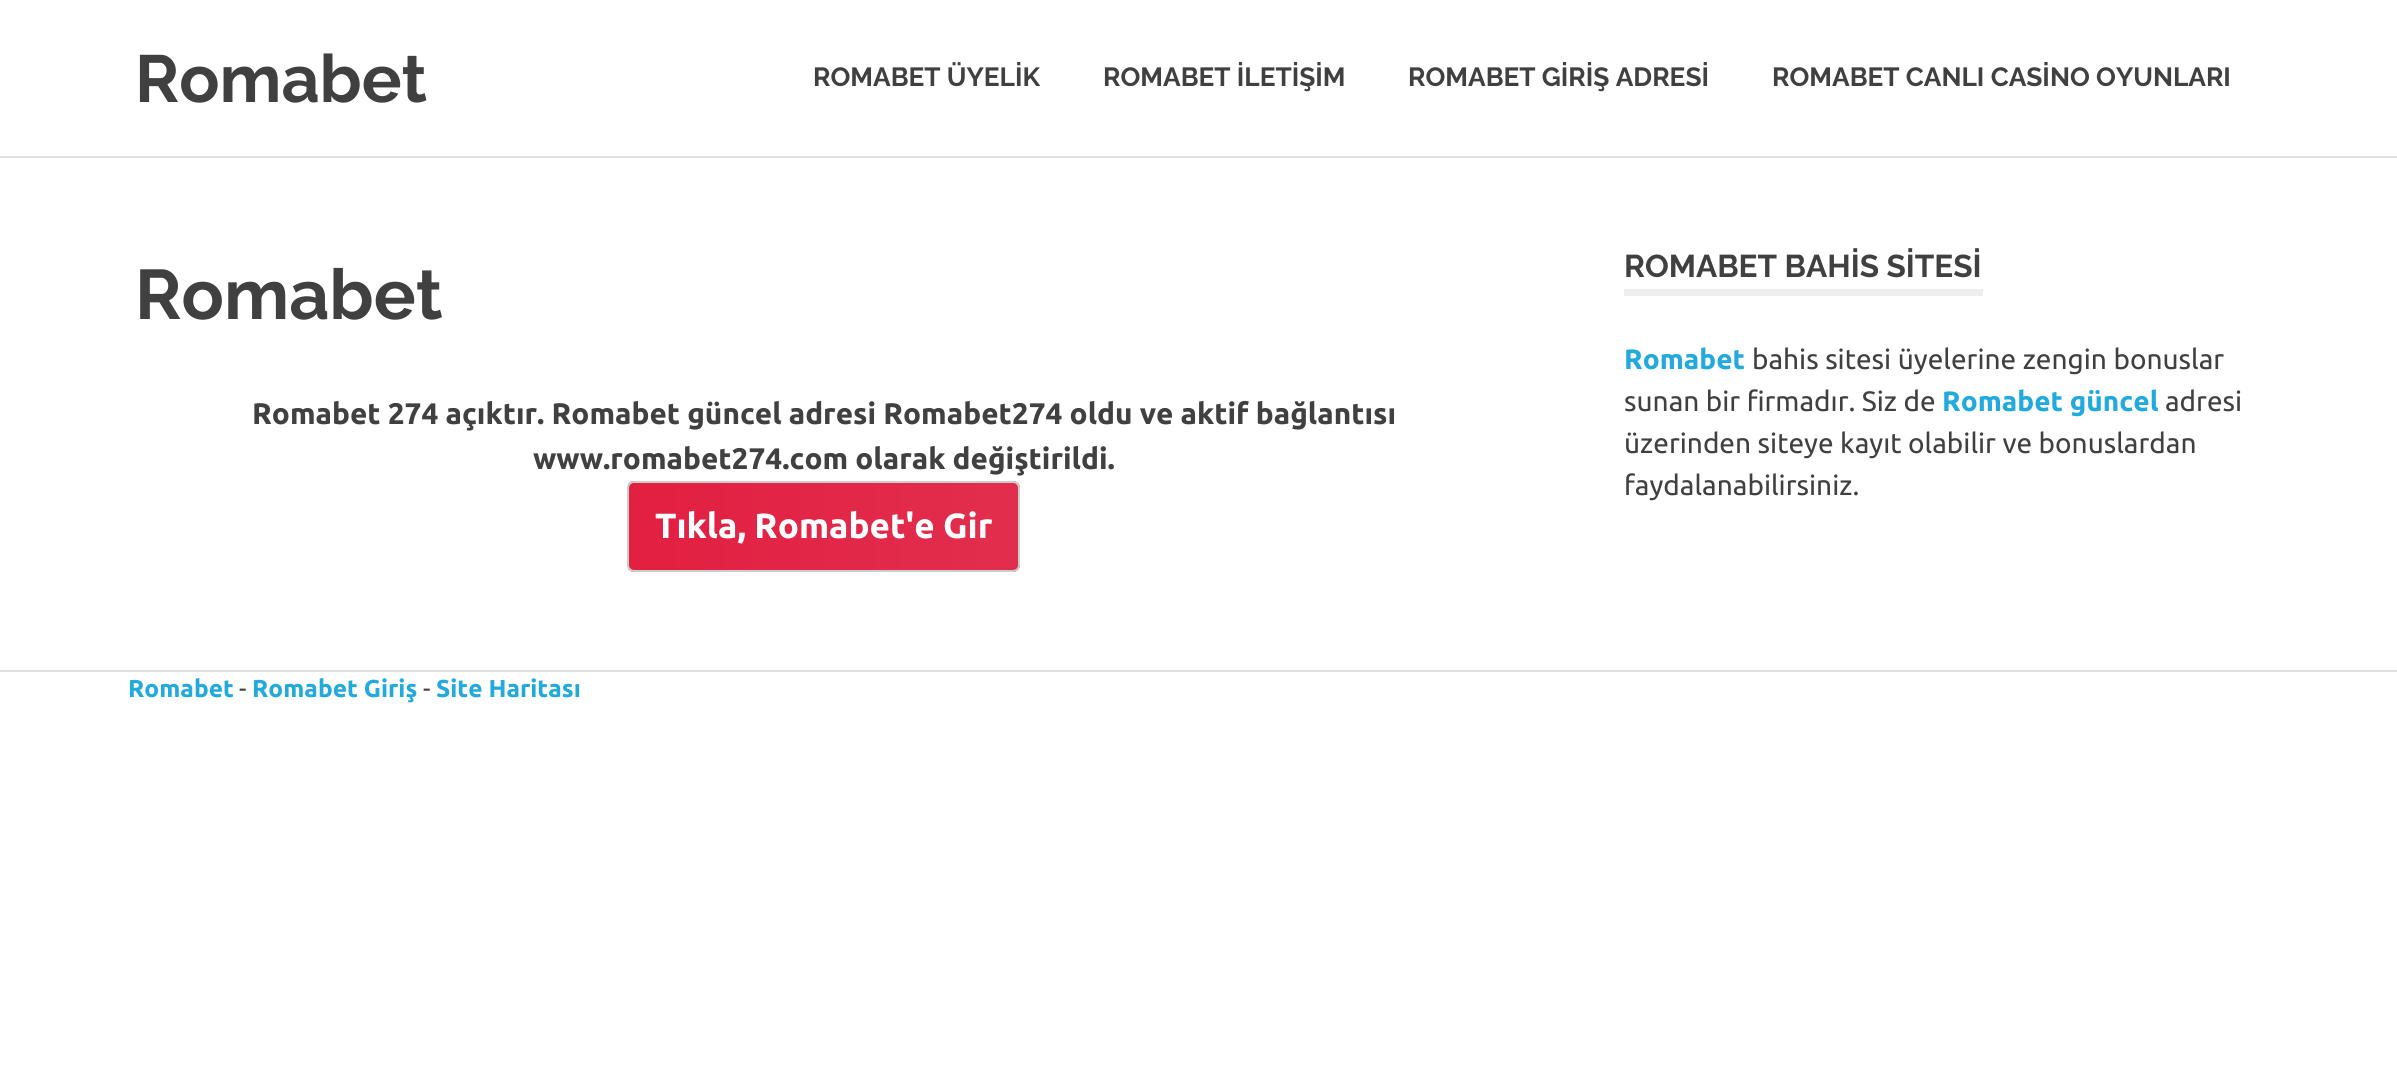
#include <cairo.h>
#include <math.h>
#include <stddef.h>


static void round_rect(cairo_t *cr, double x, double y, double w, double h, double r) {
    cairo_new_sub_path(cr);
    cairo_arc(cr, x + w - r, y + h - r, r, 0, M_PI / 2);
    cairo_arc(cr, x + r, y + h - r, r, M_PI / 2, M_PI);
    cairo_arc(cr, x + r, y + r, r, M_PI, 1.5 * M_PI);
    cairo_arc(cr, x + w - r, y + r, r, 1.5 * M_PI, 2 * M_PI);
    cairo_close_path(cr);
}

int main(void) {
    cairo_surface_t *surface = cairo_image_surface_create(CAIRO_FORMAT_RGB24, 2397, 1083);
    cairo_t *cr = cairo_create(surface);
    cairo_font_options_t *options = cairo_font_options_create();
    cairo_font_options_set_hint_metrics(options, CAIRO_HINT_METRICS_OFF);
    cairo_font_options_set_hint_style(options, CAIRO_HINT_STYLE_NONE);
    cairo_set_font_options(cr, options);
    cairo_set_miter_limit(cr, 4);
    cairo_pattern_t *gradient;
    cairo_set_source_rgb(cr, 1, 1, 1);
    cairo_paint(cr);
    cairo_set_source_rgb(cr, 0.878, 0.878, 0.878);
    cairo_rectangle(cr, 0, 156, 2397, 2);
    cairo_fill(cr);
    cairo_select_font_face(cr, "Raleway", CAIRO_FONT_SLANT_NORMAL, CAIRO_FONT_WEIGHT_BOLD);
    cairo_set_font_size(cr, 66.5);
    cairo_set_source_rgb(cr, 0.251, 0.251, 0.251);
    cairo_move_to(cr, 135, 102);
    cairo_show_text(cr, "Romabet");
    cairo_set_font_size(cr, 26.25);
    cairo_move_to(cr, 813, 86);
    cairo_show_text(cr, "ROMABET ÜYELİK");
    cairo_move_to(cr, 1103, 86);
    cairo_show_text(cr, "ROMABET İLETİŞİM");
    cairo_move_to(cr, 1408, 86);
    cairo_show_text(cr, "ROMABET GİRİŞ ADRESİ");
    cairo_move_to(cr, 1772, 86);
    cairo_show_text(cr, "ROMABET CANLI CASİNO OYUNLARI");
    cairo_set_font_size(cr, 70);
    cairo_move_to(cr, 135, 319);
    cairo_show_text(cr, "Romabet");
    cairo_select_font_face(cr, "Ubuntu", CAIRO_FONT_SLANT_NORMAL, CAIRO_FONT_WEIGHT_BOLD);
    cairo_set_font_size(cr, 29.75);
    cairo_move_to(cr, 252, 424);
    cairo_show_text(cr, "Romabet 274 açıktır. Romabet güncel adresi Romabet274 oldu ve aktif bağlantısı");
    cairo_move_to(cr, 533, 469);
    cairo_show_text(cr, "www.romabet274.com olarak değiştirildi.");
    cairo_save(cr);
    round_rect(cr, 627, 481, 393, 91, 7);
    cairo_clip(cr);
    gradient = cairo_pattern_create_linear(628, 658, 2189, 658);
    cairo_pattern_add_color_stop_rgba(gradient, 0.02, 0.886, 0.125, 0.259, 1);
    cairo_pattern_add_color_stop_rgba(gradient, 1, 0.886, 0.365, 0.459, 1);
    cairo_set_source(cr, gradient);
    cairo_pattern_destroy(gradient);
    cairo_new_path(cr);
    cairo_move_to(cr, 628, 481);
    cairo_line_to(cr, 1013, 481);
    cairo_curve_to(cr, 1017, 481, 1020, 484, 1020, 488);
    cairo_line_to(cr, 1020, 565);
    cairo_curve_to(cr, 1020, 569, 1017, 572, 1013, 572);
    cairo_line_to(cr, 628, 572);
    cairo_close_path(cr);
    cairo_fill(cr);
    cairo_restore(cr);
    round_rect(cr, 628, 482, 391, 89, 6);
    cairo_set_source_rgb(cr, 0.8, 0.8, 0.8);
    cairo_stroke(cr);
    cairo_set_font_size(cr, 35);
    cairo_set_source_rgb(cr, 1, 1, 1);
    cairo_move_to(cr, 655, 538);
    cairo_show_text(cr, "Tıkla, Romabet'e Gir");
    cairo_set_source_rgb(cr, 0.933, 0.933, 0.933);
    cairo_rectangle(cr, 1624, 289, 359, 7);
    cairo_fill(cr);
    cairo_select_font_face(cr, "Raleway", CAIRO_FONT_SLANT_NORMAL, CAIRO_FONT_WEIGHT_BOLD);
    cairo_set_font_size(cr, 31.5);
    cairo_set_source_rgb(cr, 0.251, 0.251, 0.251);
    cairo_move_to(cr, 1624, 277);
    cairo_show_text(cr, "ROMABET BAHİS SİTESİ");
    cairo_select_font_face(cr, "Ubuntu", CAIRO_FONT_SLANT_NORMAL, CAIRO_FONT_WEIGHT_BOLD);
    cairo_set_font_size(cr, 28);
    cairo_set_source_rgb(cr, 0.133, 0.667, 0.867);
    cairo_move_to(cr, 1624, 369);
    cairo_show_text(cr, "Romabet");
    cairo_select_font_face(cr, "Ubuntu", CAIRO_FONT_SLANT_NORMAL, CAIRO_FONT_WEIGHT_NORMAL);
    cairo_set_source_rgb(cr, 0.251, 0.251, 0.251);
    cairo_move_to(cr, 1752, 369);
    cairo_show_text(cr, "bahis sitesi üyelerine zengin bonuslar");
    cairo_move_to(cr, 1624, 411);
    cairo_show_text(cr, "sunan bir firmadır. Siz de");
    cairo_select_font_face(cr, "Ubuntu", CAIRO_FONT_SLANT_NORMAL, CAIRO_FONT_WEIGHT_BOLD);
    cairo_set_source_rgb(cr, 0.133, 0.667, 0.867);
    cairo_move_to(cr, 1942, 411);
    cairo_show_text(cr, "Romabet güncel");
    cairo_select_font_face(cr, "Ubuntu", CAIRO_FONT_SLANT_NORMAL, CAIRO_FONT_WEIGHT_NORMAL);
    cairo_set_source_rgb(cr, 0.251, 0.251, 0.251);
    cairo_move_to(cr, 2165, 411);
    cairo_show_text(cr, "adresi");
    cairo_move_to(cr, 1624, 453);
    cairo_show_text(cr, "üzerinden siteye kayıt olabilir ve bonuslardan");
    cairo_move_to(cr, 1624, 495);
    cairo_show_text(cr, "faydalanabilirsiniz.");
    cairo_set_source_rgb(cr, 0.878, 0.878, 0.878);
    cairo_rectangle(cr, 0, 670, 2397, 2);
    cairo_fill(cr);
    cairo_select_font_face(cr, "Ubuntu", CAIRO_FONT_SLANT_NORMAL, CAIRO_FONT_WEIGHT_BOLD);
    cairo_set_font_size(cr, 24.5);
    cairo_set_source_rgb(cr, 0.133, 0.667, 0.867);
    cairo_move_to(cr, 128, 697);
    cairo_show_text(cr, "Romabet");
    cairo_select_font_face(cr, "Ubuntu", CAIRO_FONT_SLANT_NORMAL, CAIRO_FONT_WEIGHT_NORMAL);
    cairo_set_source_rgb(cr, 0.251, 0.251, 0.251);
    cairo_move_to(cr, 239, 697);
    cairo_show_text(cr, "-");
    cairo_select_font_face(cr, "Ubuntu", CAIRO_FONT_SLANT_NORMAL, CAIRO_FONT_WEIGHT_BOLD);
    cairo_set_source_rgb(cr, 0.133, 0.667, 0.867);
    cairo_move_to(cr, 252, 697);
    cairo_show_text(cr, "Romabet Giriş");
    cairo_select_font_face(cr, "Ubuntu", CAIRO_FONT_SLANT_NORMAL, CAIRO_FONT_WEIGHT_NORMAL);
    cairo_set_source_rgb(cr, 0.251, 0.251, 0.251);
    cairo_move_to(cr, 423, 697);
    cairo_show_text(cr, "-");
    cairo_select_font_face(cr, "Ubuntu", CAIRO_FONT_SLANT_NORMAL, CAIRO_FONT_WEIGHT_BOLD);
    cairo_set_source_rgb(cr, 0.133, 0.667, 0.867);
    cairo_move_to(cr, 436, 697);
    cairo_show_text(cr, "Site Haritası");
    cairo_surface_write_to_png(surface, "page.png");
    cairo_font_options_destroy(options);
    cairo_destroy(cr);
    cairo_surface_destroy(surface);
    return 0;
}
